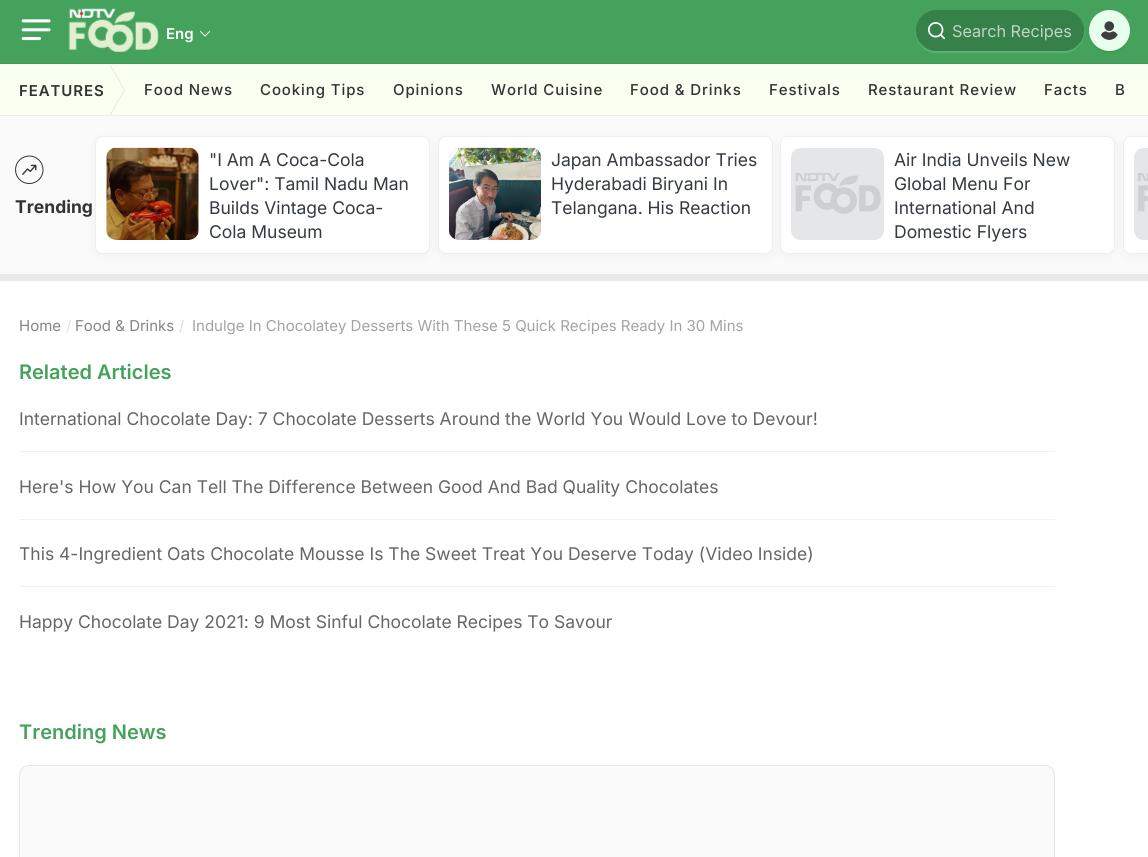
#include <cairo.h>
#include <math.h>
#include <stddef.h>


static void spaced_text(cairo_t *cr, double x, double y, const char *s, double letter, double word) {
    cairo_move_to(cr, x, y);
    while (*s) {
        char ch[5] = {0};
        int n = 0;
        do ch[n++] = *s++; while ((*s & 0xC0) == 0x80);
        cairo_show_text(cr, ch);
        cairo_rel_move_to(cr, letter + word * (*ch == ' '), 0);
    }
}

static void round_rect(cairo_t *cr, double x, double y, double w, double h, double r) {
    cairo_new_sub_path(cr);
    cairo_arc(cr, x + w - r, y + h - r, r, 0, M_PI / 2);
    cairo_arc(cr, x + r, y + h - r, r, M_PI / 2, M_PI);
    cairo_arc(cr, x + r, y + r, r, M_PI, 1.5 * M_PI);
    cairo_arc(cr, x + w - r, y + r, r, 1.5 * M_PI, 2 * M_PI);
    cairo_close_path(cr);
}

static void shadow(cairo_t *cr, double x, double y, double w, double h, double r, double blur, double alpha) {
    cairo_push_group_with_content(cr, CAIRO_CONTENT_ALPHA);
    cairo_set_operator(cr, CAIRO_OPERATOR_SOURCE);
    for (int i = 15; i >= -15 && fmin(w, h) + blur * i / 3 > 0; i -= 2) {
        double e = blur * i / 6;
        cairo_set_source_rgba(cr, 0, 0, 0, alpha * erfc((i - 1) / 8.5) / 2);
        round_rect(cr, x - e, y - e, w + 2 * e, h + 2 * e, fmax(0, fmin(r + e + blur * .6, fmin(w, h) / 2 + e)));
        cairo_fill(cr);
    }
    cairo_pattern_t *soft = cairo_pop_group(cr);
    cairo_mask(cr, soft);
    cairo_pattern_destroy(soft);
}

static void picture(cairo_t *cr, const char *path, double x, double y, double w, double h) {
    cairo_surface_t *image = cairo_image_surface_create_from_png(path);
    cairo_save(cr);
    cairo_set_source_surface(cr, image, x, y);
    cairo_rectangle(cr, x, y, w, h);
    cairo_fill(cr);
    cairo_restore(cr);
    cairo_surface_destroy(image);
}

int main(void) {
    cairo_surface_t *surface = cairo_image_surface_create(CAIRO_FORMAT_RGB24, 1148, 857);
    cairo_t *cr = cairo_create(surface);
    cairo_font_options_t *options = cairo_font_options_create();
    cairo_font_options_set_hint_metrics(options, CAIRO_HINT_METRICS_OFF);
    cairo_font_options_set_hint_style(options, CAIRO_HINT_STYLE_NONE);
    cairo_set_font_options(cr, options);
    cairo_set_miter_limit(cr, 4);
    cairo_set_source_rgb(cr, 1, 1, 1);
    cairo_paint(cr);
    cairo_set_source_rgb(cr, 0.267, 0.635, 0.361);
    cairo_rectangle(cr, 0, 0, 1148, 63);
    cairo_fill(cr);
    cairo_set_source_rgb(cr, 0.263, 0.604, 0.349);
    cairo_rectangle(cr, 0, 63, 1148, 1);
    cairo_fill(cr);
    picture(cr, "img1.png", 21, 19, 30, 22);
    picture(cr, "img2.png", 68, 8, 91, 45);
    cairo_select_font_face(cr, "Inter SemiBold", CAIRO_FONT_SLANT_NORMAL, CAIRO_FONT_WEIGHT_NORMAL);
    cairo_set_font_size(cr, 15);
    cairo_set_source_rgb(cr, 1, 1, 1);
    cairo_move_to(cr, 166, 39);
    cairo_show_text(cr, "Eng");
    picture(cr, "img3.png", 200, 31, 10, 6);
    cairo_save(cr);
    cairo_set_fill_rule(cr, CAIRO_FILL_RULE_EVEN_ODD);
    cairo_new_path(cr);
    cairo_move_to(cr, 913, 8);
    cairo_line_to(cr, 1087, 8);
    cairo_line_to(cr, 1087, 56);
    cairo_line_to(cr, 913, 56);
    cairo_close_path(cr);
    cairo_move_to(cr, 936.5, 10);
    cairo_line_to(cr, 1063.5, 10);
    cairo_curve_to(cr, 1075, 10, 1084, 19, 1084, 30.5);
    cairo_curve_to(cr, 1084, 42, 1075, 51, 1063.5, 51);
    cairo_line_to(cr, 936.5, 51);
    cairo_curve_to(cr, 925, 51, 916, 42, 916, 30.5);
    cairo_curve_to(cr, 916, 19, 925, 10, 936.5, 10);
    cairo_close_path(cr);
    cairo_clip(cr);
    cairo_set_source_rgb(cr, 1, 1, 1);
    shadow(cr, 916, 11, 168, 42, 21, 0.5, 0.14);
    cairo_restore(cr);
    cairo_set_source_rgba(cr, 0, 0, 0, 0.21);
    round_rect(cr, 916, 10, 168, 41, 20.5);
    cairo_fill(cr);
    picture(cr, "img4.png", 928, 22, 18, 18);
    cairo_select_font_face(cr, "Inter", CAIRO_FONT_SLANT_NORMAL, CAIRO_FONT_WEIGHT_NORMAL);
    cairo_set_font_size(cr, 16.25);
    cairo_set_source_rgb(cr, 0.749, 0.839, 0.773);
    cairo_move_to(cr, 952, 37);
    cairo_show_text(cr, "Search Recipes");
    cairo_set_source_rgb(cr, 0, 0, 0);
    shadow(cr, 1089, 11, 41, 42, 20.5, 1, 0.07);
    cairo_set_source_rgb(cr, 0.906, 1, 0.929);
    cairo_arc(cr, 1109.5, 30.5, 19, 0, 2 * M_PI);
    cairo_fill_preserve(cr);
    cairo_set_source_rgb(cr, 0.91, 1, 0.929);
    cairo_set_line_width(cr, 3);
    cairo_stroke(cr);
    picture(cr, "img5.png", 1101, 21, 17, 19);
    cairo_set_source_rgb(cr, 0.976, 1, 0.945);
    cairo_rectangle(cr, 0, 64, 1148, 51);
    cairo_fill(cr);
    cairo_set_source_rgb(cr, 0.933, 0.933, 0.933);
    cairo_rectangle(cr, 0, 115, 1148, 1);
    cairo_fill(cr);
    cairo_select_font_face(cr, "Inter SemiBold", CAIRO_FONT_SLANT_NORMAL, CAIRO_FONT_WEIGHT_NORMAL);
    cairo_set_font_size(cr, 15);
    cairo_set_source_rgb(cr, 0.2, 0.2, 0.2);
    spaced_text(cr, 19, 96, "FEATURES", 0.9, 0);
    cairo_set_source_rgb(cr, 0.886, 0.906, 0.859);
    cairo_new_path(cr);
    cairo_move_to(cr, 110, 116);
    cairo_line_to(cr, 110, 64);
    cairo_line_to(cr, 125, 90);
    cairo_close_path(cr);
    cairo_fill(cr);
    cairo_set_source_rgb(cr, 0.976, 1, 0.945);
    cairo_new_path(cr);
    cairo_move_to(cr, 109, 116);
    cairo_line_to(cr, 109, 64);
    cairo_line_to(cr, 124, 90);
    cairo_close_path(cr);
    cairo_fill(cr);
    cairo_select_font_face(cr, "Inter Medium", CAIRO_FONT_SLANT_NORMAL, CAIRO_FONT_WEIGHT_NORMAL);
    cairo_set_source_rgb(cr, 0.2, 0.2, 0.2);
    spaced_text(cr, 144, 95, "Food News", 0.9, 0);
    spaced_text(cr, 260, 95, "Cooking Tips", 0.9, 0);
    spaced_text(cr, 393, 95, "Opinions", 0.9, 0);
    spaced_text(cr, 491, 95, "World Cuisine", 0.9, 0);
    spaced_text(cr, 630, 95, "Food & Drinks", 0.9, 0);
    spaced_text(cr, 769, 95, "Festivals", 0.9, 0);
    spaced_text(cr, 868, 95, "Restaurant Review", 0.9, 0);
    spaced_text(cr, 1044, 95, "Facts", 0.9, 0);
    spaced_text(cr, 1115, 95, "B", 0.9, 0);
    cairo_set_source_rgb(cr, 0.98, 0.98, 0.98);
    cairo_rectangle(cr, 0, 116, 1148, 158);
    cairo_fill(cr);
    cairo_set_source_rgb(cr, 0.914, 0.914, 0.914);
    cairo_rectangle(cr, 0, 274, 1148, 7);
    cairo_fill(cr);
    picture(cr, "img6.png", 15, 155, 29, 30);
    cairo_select_font_face(cr, "Inter", CAIRO_FONT_SLANT_NORMAL, CAIRO_FONT_WEIGHT_BOLD);
    cairo_set_font_size(cr, 17.5);
    cairo_set_source_rgb(cr, 0.2, 0.2, 0.2);
    cairo_move_to(cr, 15, 213);
    cairo_show_text(cr, "Trending");
    cairo_set_source_rgb(cr, 0, 0, 0);
    shadow(cr, 95, 139, 335, 117, 8, 6, 0.04);
    cairo_set_source_rgb(cr, 1, 1, 1);
    round_rect(cr, 95, 136, 335, 118, 8);
    cairo_fill(cr);
    round_rect(cr, 95.5, 136.5, 334, 117, 7.5);
    cairo_set_source_rgba(cr, 0, 0, 0, 0.07);
    cairo_set_line_width(cr, 1);
    cairo_stroke(cr);
    cairo_set_source_rgb(cr, 0.98, 0.98, 0.98);
    round_rect(cr, 106, 148, 93, 92, 10);
    cairo_fill(cr);
    cairo_set_source_rgba(cr, 0.173, 0.227, 0.29, 0.1);
    cairo_new_path(cr);
    cairo_move_to(cr, 116, 148);
    cairo_line_to(cr, 189, 148);
    cairo_curve_to(cr, 195, 148, 199, 152, 199, 158);
    cairo_line_to(cr, 199, 230);
    cairo_curve_to(cr, 199, 236, 195, 240, 189, 240);
    cairo_line_to(cr, 116, 240);
    cairo_curve_to(cr, 110, 240, 106, 236, 106, 230);
    cairo_line_to(cr, 106, 158);
    cairo_curve_to(cr, 106, 152, 110, 148, 116, 148);
    cairo_close_path(cr);
    cairo_fill(cr);
    picture(cr, "img7.png", 106, 147, 93, 93);
    cairo_select_font_face(cr, "Inter", CAIRO_FONT_SLANT_NORMAL, CAIRO_FONT_WEIGHT_NORMAL);
    cairo_set_source_rgb(cr, 0.204, 0.227, 0.251);
    cairo_move_to(cr, 209, 166);
    cairo_show_text(cr, "\"I Am A Coca-Cola");
    cairo_move_to(cr, 209, 190);
    cairo_show_text(cr, "Lover\": Tamil Nadu Man");
    cairo_move_to(cr, 209, 214);
    cairo_show_text(cr, "Builds Vintage Coca-");
    cairo_move_to(cr, 209, 238);
    cairo_show_text(cr, "Cola Museum");
    cairo_set_source_rgb(cr, 0, 0, 0);
    shadow(cr, 438, 139, 335, 117, 8, 6, 0.04);
    cairo_set_source_rgb(cr, 1, 1, 1);
    round_rect(cr, 438, 136, 335, 118, 8);
    cairo_fill(cr);
    round_rect(cr, 438.5, 136.5, 334, 117, 7.5);
    cairo_set_source_rgba(cr, 0, 0, 0, 0.07);
    cairo_stroke(cr);
    cairo_set_source_rgb(cr, 0.98, 0.98, 0.98);
    round_rect(cr, 449, 148, 92, 92, 10);
    cairo_fill(cr);
    cairo_set_source_rgba(cr, 0.173, 0.227, 0.29, 0.1);
    cairo_new_path(cr);
    cairo_move_to(cr, 459, 148);
    cairo_line_to(cr, 531, 148);
    cairo_curve_to(cr, 537, 148, 541, 152, 541, 158);
    cairo_line_to(cr, 541, 230);
    cairo_curve_to(cr, 541, 236, 537, 240, 531, 240);
    cairo_line_to(cr, 459, 240);
    cairo_curve_to(cr, 453, 240, 449, 236, 449, 230);
    cairo_line_to(cr, 449, 158);
    cairo_curve_to(cr, 449, 152, 453, 148, 459, 148);
    cairo_close_path(cr);
    cairo_fill(cr);
    picture(cr, "img8.png", 449, 147, 92, 93);
    cairo_set_source_rgb(cr, 0.204, 0.227, 0.251);
    cairo_move_to(cr, 551, 166);
    cairo_show_text(cr, "Japan Ambassador Tries");
    cairo_move_to(cr, 551, 190);
    cairo_show_text(cr, "Hyderabadi Biryani In");
    cairo_move_to(cr, 551, 214);
    cairo_show_text(cr, "Telangana. His Reaction");
    cairo_set_source_rgb(cr, 0, 0, 0);
    shadow(cr, 780, 139, 335, 117, 8, 6, 0.04);
    cairo_set_source_rgb(cr, 1, 1, 1);
    round_rect(cr, 780, 136, 335, 118, 8);
    cairo_fill(cr);
    round_rect(cr, 780.5, 136.5, 334, 117, 7.5);
    cairo_set_source_rgba(cr, 0, 0, 0, 0.07);
    cairo_stroke(cr);
    cairo_set_source_rgb(cr, 0.98, 0.98, 0.98);
    round_rect(cr, 791, 148, 93, 92, 10);
    cairo_fill(cr);
    picture(cr, "img9.png", 795, 173, 86, 41);
    cairo_set_source_rgba(cr, 0.173, 0.227, 0.29, 0.1);
    cairo_new_path(cr);
    cairo_move_to(cr, 801, 148);
    cairo_line_to(cr, 874, 148);
    cairo_curve_to(cr, 880, 148, 884, 152, 884, 158);
    cairo_line_to(cr, 884, 230);
    cairo_curve_to(cr, 884, 236, 880, 240, 874, 240);
    cairo_line_to(cr, 801, 240);
    cairo_curve_to(cr, 795, 240, 791, 236, 791, 230);
    cairo_line_to(cr, 791, 158);
    cairo_curve_to(cr, 791, 152, 795, 148, 801, 148);
    cairo_close_path(cr);
    cairo_fill(cr);
    cairo_set_source_rgb(cr, 0.204, 0.227, 0.251);
    cairo_move_to(cr, 894, 166);
    cairo_show_text(cr, "Air India Unveils New");
    cairo_move_to(cr, 894, 190);
    cairo_show_text(cr, "Global Menu For");
    cairo_move_to(cr, 894, 214);
    cairo_show_text(cr, "International And");
    cairo_move_to(cr, 894, 238);
    cairo_show_text(cr, "Domestic Flyers");
    cairo_set_source_rgb(cr, 0, 0, 0);
    shadow(cr, 1123, 139, 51, 117, 8, 6, 0.04);
    cairo_set_source_rgb(cr, 1, 1, 1);
    cairo_new_path(cr);
    cairo_move_to(cr, 1131, 136);
    cairo_line_to(cr, 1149, 136);
    cairo_line_to(cr, 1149, 254);
    cairo_line_to(cr, 1131, 254);
    cairo_curve_to(cr, 1126.5, 254, 1123, 250.5, 1123, 246);
    cairo_line_to(cr, 1123, 144);
    cairo_curve_to(cr, 1123, 139.5, 1126.5, 136, 1131, 136);
    cairo_close_path(cr);
    cairo_fill(cr);
    round_rect(cr, 1123.5, 136.5, 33, 117, 7.5);
    cairo_set_source_rgba(cr, 0, 0, 0, 0.07);
    cairo_stroke(cr);
    cairo_set_source_rgb(cr, 0.98, 0.98, 0.98);
    cairo_new_path(cr);
    cairo_move_to(cr, 1144, 148);
    cairo_line_to(cr, 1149, 148);
    cairo_line_to(cr, 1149, 240);
    cairo_line_to(cr, 1144, 240);
    cairo_curve_to(cr, 1138.5, 240, 1134, 235.5, 1134, 230);
    cairo_line_to(cr, 1134, 158);
    cairo_curve_to(cr, 1134, 152.5, 1138.5, 148, 1144, 148);
    cairo_close_path(cr);
    cairo_fill(cr);
    picture(cr, "img10.png", 1138, 173, 10, 39);
    cairo_set_source_rgba(cr, 0.173, 0.227, 0.29, 0.1);
    cairo_new_path(cr);
    cairo_move_to(cr, 1144, 148);
    cairo_line_to(cr, 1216, 148);
    cairo_curve_to(cr, 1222, 148, 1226, 152, 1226, 158);
    cairo_line_to(cr, 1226, 230);
    cairo_curve_to(cr, 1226, 236, 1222, 240, 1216, 240);
    cairo_line_to(cr, 1144, 240);
    cairo_curve_to(cr, 1138, 240, 1134, 236, 1134, 230);
    cairo_line_to(cr, 1134, 158);
    cairo_curve_to(cr, 1134, 152, 1138, 148, 1144, 148);
    cairo_close_path(cr);
    cairo_fill(cr);
    cairo_set_font_size(cr, 15);
    cairo_set_source_rgb(cr, 0.522, 0.522, 0.522);
    cairo_move_to(cr, 19, 331);
    cairo_show_text(cr, "Home");
    cairo_set_source_rgb(cr, 0.878, 0.878, 0.878);
    cairo_move_to(cr, 66, 331);
    cairo_show_text(cr, "/");
    cairo_set_source_rgb(cr, 0.522, 0.522, 0.522);
    cairo_move_to(cr, 75, 331);
    cairo_show_text(cr, "Food & Drinks");
    cairo_set_source_rgb(cr, 0.878, 0.878, 0.878);
    cairo_move_to(cr, 179, 331);
    cairo_show_text(cr, "/");
    cairo_set_source_rgb(cr, 0.639, 0.639, 0.639);
    cairo_move_to(cr, 192, 331);
    cairo_show_text(cr, "Indulge In Chocolatey Desserts With These 5 Quick Recipes Ready In 30 Mins");
    cairo_select_font_face(cr, "Inter SemiBold", CAIRO_FONT_SLANT_NORMAL, CAIRO_FONT_WEIGHT_NORMAL);
    cairo_set_font_size(cr, 20);
    cairo_set_source_rgb(cr, 0.267, 0.635, 0.361);
    cairo_move_to(cr, 19, 379);
    cairo_show_text(cr, "Related Articles");
    cairo_set_source_rgb(cr, 0.945, 0.945, 0.945);
    cairo_rectangle(cr, 19, 451, 1036, 1);
    cairo_fill(cr);
    cairo_select_font_face(cr, "Inter", CAIRO_FONT_SLANT_NORMAL, CAIRO_FONT_WEIGHT_NORMAL);
    cairo_set_font_size(cr, 17.5);
    cairo_set_source_rgb(cr, 0.4, 0.4, 0.4);
    cairo_move_to(cr, 19, 425);
    cairo_show_text(cr, "International Chocolate Day: 7 Chocolate Desserts Around the World You Would Love to Devour!");
    cairo_set_source_rgb(cr, 0.945, 0.945, 0.945);
    cairo_rectangle(cr, 19, 519, 1036, 1);
    cairo_fill(cr);
    cairo_set_source_rgb(cr, 0.4, 0.4, 0.4);
    cairo_move_to(cr, 19, 493);
    cairo_show_text(cr, "Here's How You Can Tell The Difference Between Good And Bad Quality Chocolates");
    cairo_set_source_rgb(cr, 0.945, 0.945, 0.945);
    cairo_rectangle(cr, 19, 586, 1036, 1);
    cairo_fill(cr);
    cairo_set_source_rgb(cr, 0.4, 0.4, 0.4);
    cairo_move_to(cr, 19, 560);
    cairo_show_text(cr, "This 4-Ingredient Oats Chocolate Mousse Is The Sweet Treat You Deserve Today (Video Inside)");
    cairo_move_to(cr, 19, 628);
    cairo_show_text(cr, "Happy Chocolate Day 2021: 9 Most Sinful Chocolate Recipes To Savour");
    cairo_select_font_face(cr, "Inter SemiBold", CAIRO_FONT_SLANT_NORMAL, CAIRO_FONT_WEIGHT_NORMAL);
    cairo_set_font_size(cr, 20);
    cairo_set_source_rgb(cr, 0.267, 0.635, 0.361);
    cairo_move_to(cr, 19, 739);
    cairo_show_text(cr, "Trending News");
    cairo_set_source_rgb(cr, 0.98, 0.98, 0.98);
    round_rect(cr, 19.5, 765.5, 1035, 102, 9.5);
    cairo_fill_preserve(cr);
    cairo_set_source_rgb(cr, 0.898, 0.906, 0.91);
    cairo_stroke(cr);
    cairo_surface_write_to_png(surface, "page.png");
    cairo_font_options_destroy(options);
    cairo_destroy(cr);
    cairo_surface_destroy(surface);
    return 0;
}
